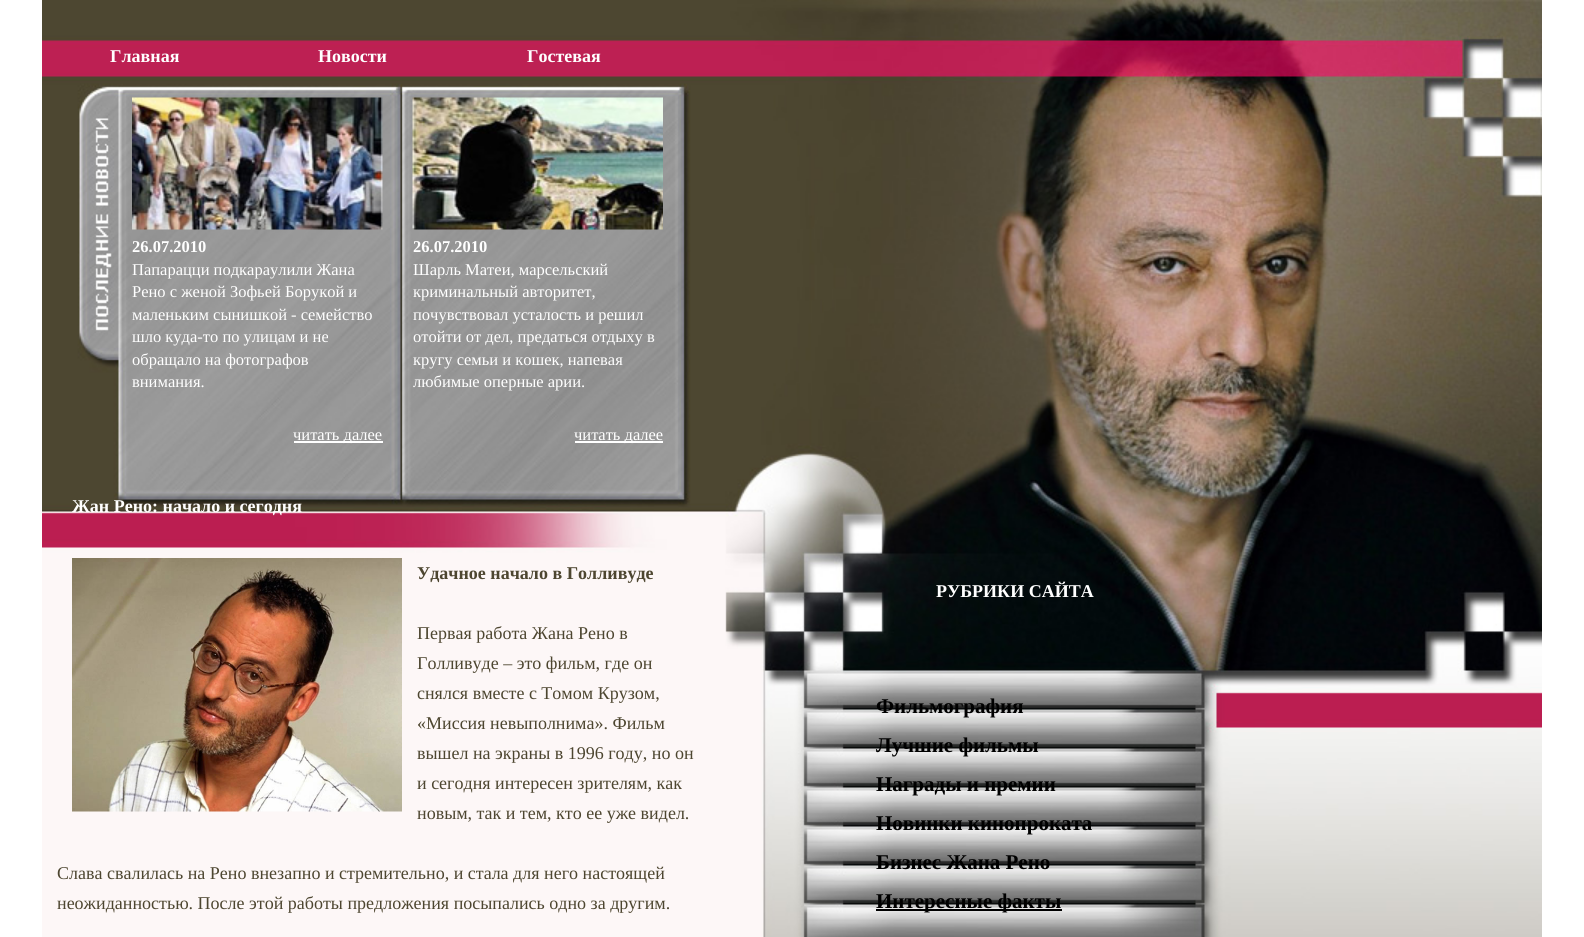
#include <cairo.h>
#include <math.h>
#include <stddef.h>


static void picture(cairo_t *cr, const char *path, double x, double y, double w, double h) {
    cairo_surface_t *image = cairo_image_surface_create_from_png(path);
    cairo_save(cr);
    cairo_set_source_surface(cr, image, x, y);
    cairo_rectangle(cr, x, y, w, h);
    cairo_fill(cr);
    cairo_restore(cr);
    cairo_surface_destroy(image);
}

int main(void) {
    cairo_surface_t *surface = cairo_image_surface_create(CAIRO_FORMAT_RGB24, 1584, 937);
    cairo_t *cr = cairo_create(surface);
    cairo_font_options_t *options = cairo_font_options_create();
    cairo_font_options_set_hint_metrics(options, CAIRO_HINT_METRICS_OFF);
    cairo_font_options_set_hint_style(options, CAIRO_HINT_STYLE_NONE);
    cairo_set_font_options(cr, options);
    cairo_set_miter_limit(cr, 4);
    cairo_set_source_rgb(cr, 1, 1, 1);
    cairo_paint(cr);
    picture(cr, "img1.png", 42, 0, 1500, 937);
    cairo_select_font_face(cr, "Liberation Serif", CAIRO_FONT_SLANT_NORMAL, CAIRO_FONT_WEIGHT_BOLD);
    cairo_set_font_size(cr, 18);
    cairo_set_source_rgb(cr, 1, 1, 1);
    cairo_move_to(cr, 110, 62);
    cairo_show_text(cr, "Главная");
    cairo_move_to(cr, 318, 62);
    cairo_show_text(cr, "Новости");
    cairo_move_to(cr, 527, 62);
    cairo_show_text(cr, "Гостевая");
    picture(cr, "img2.png", 132, 97, 251, 133);
    cairo_set_font_size(cr, 16.5);
    cairo_move_to(cr, 132, 252);
    cairo_show_text(cr, "26.07.2010");
    cairo_select_font_face(cr, "Liberation Serif", CAIRO_FONT_SLANT_NORMAL, CAIRO_FONT_WEIGHT_NORMAL);
    cairo_move_to(cr, 132, 275);
    cairo_show_text(cr, "Папарацци подкараулили Жана");
    cairo_move_to(cr, 132, 297);
    cairo_show_text(cr, "Рено с женой Зофьей Борукой и");
    cairo_move_to(cr, 132, 320);
    cairo_show_text(cr, "маленьким сынишкой - семейство");
    cairo_move_to(cr, 132, 342);
    cairo_show_text(cr, "шло куда-то по улицам и не");
    cairo_move_to(cr, 132, 365);
    cairo_show_text(cr, "обращало на фотографов");
    cairo_move_to(cr, 132, 387);
    cairo_show_text(cr, "внимания.");
    cairo_rectangle(cr, 294, 441, 89, 2);
    cairo_fill(cr);
    cairo_move_to(cr, 293, 440);
    cairo_show_text(cr, "читать далее");
    picture(cr, "img3.png", 412, 97, 251, 133);
    cairo_select_font_face(cr, "Liberation Serif", CAIRO_FONT_SLANT_NORMAL, CAIRO_FONT_WEIGHT_BOLD);
    cairo_move_to(cr, 413, 252);
    cairo_show_text(cr, "26.07.2010");
    cairo_select_font_face(cr, "Liberation Serif", CAIRO_FONT_SLANT_NORMAL, CAIRO_FONT_WEIGHT_NORMAL);
    cairo_move_to(cr, 413, 275);
    cairo_show_text(cr, "Шарль Матеи, марсельский");
    cairo_move_to(cr, 413, 297);
    cairo_show_text(cr, "криминальный авторитет,");
    cairo_move_to(cr, 413, 320);
    cairo_show_text(cr, "почувствовал усталость и решил");
    cairo_move_to(cr, 413, 342);
    cairo_show_text(cr, "отойти от дел, предаться отдыху в");
    cairo_move_to(cr, 413, 365);
    cairo_show_text(cr, "кругу семьи и кошек, напевая");
    cairo_move_to(cr, 413, 387);
    cairo_show_text(cr, "любимые оперные арии.");
    cairo_rectangle(cr, 575, 441, 88, 2);
    cairo_fill(cr);
    cairo_move_to(cr, 574, 440);
    cairo_show_text(cr, "читать далее");
    cairo_select_font_face(cr, "Liberation Serif", CAIRO_FONT_SLANT_NORMAL, CAIRO_FONT_WEIGHT_BOLD);
    cairo_set_font_size(cr, 18);
    cairo_move_to(cr, 72, 512);
    cairo_show_text(cr, "Жан Рено: начало и сегодня");
    picture(cr, "img4.png", 72, 558, 330, 254);
    cairo_set_source_rgb(cr, 0.302, 0.275, 0.188);
    cairo_move_to(cr, 417, 579);
    cairo_show_text(cr, "Удачное начало в Голливуде");
    cairo_select_font_face(cr, "Liberation Serif", CAIRO_FONT_SLANT_NORMAL, CAIRO_FONT_WEIGHT_NORMAL);
    cairo_move_to(cr, 417, 639);
    cairo_show_text(cr, "Первая работа Жана Рено в");
    cairo_move_to(cr, 417, 669);
    cairo_show_text(cr, "Голливуде – это фильм, где он");
    cairo_move_to(cr, 417, 699);
    cairo_show_text(cr, "снялся вместе с Томом Крузом,");
    cairo_move_to(cr, 417, 729);
    cairo_show_text(cr, "«Миссия невыполнима». Фильм");
    cairo_move_to(cr, 417, 759);
    cairo_show_text(cr, "вышел на экраны в 1996 году, но он");
    cairo_move_to(cr, 417, 789);
    cairo_show_text(cr, "и сегодня интересен зрителям, как");
    cairo_move_to(cr, 417, 819);
    cairo_show_text(cr, "новым, так и тем, кто ее уже видел.");
    cairo_move_to(cr, 57, 879);
    cairo_show_text(cr, "Слава свалилась на Рено внезапно и стремительно, и стала для него настоящей");
    cairo_move_to(cr, 57, 909);
    cairo_show_text(cr, "неожиданностью. После этой работы предложения посыпались одно за другим.");
    cairo_select_font_face(cr, "Liberation Serif", CAIRO_FONT_SLANT_NORMAL, CAIRO_FONT_WEIGHT_BOLD);
    cairo_set_source_rgb(cr, 1, 1, 1);
    cairo_move_to(cr, 936, 597);
    cairo_show_text(cr, "РУБРИКИ САЙТА");
    cairo_set_font_size(cr, 21);
    cairo_set_source_rgb(cr, 0, 0, 0);
    cairo_move_to(cr, 876, 713);
    cairo_show_text(cr, "Фильмография");
    cairo_move_to(cr, 876, 752);
    cairo_show_text(cr, "Лучшие фильмы");
    cairo_move_to(cr, 876, 791);
    cairo_show_text(cr, "Награды и премии");
    cairo_move_to(cr, 876, 830);
    cairo_show_text(cr, "Новинки кинопроката");
    cairo_move_to(cr, 876, 869);
    cairo_show_text(cr, "Бизнес Жана Рено");
    cairo_rectangle(cr, 876, 909, 186, 2);
    cairo_fill(cr);
    cairo_move_to(cr, 876, 908);
    cairo_show_text(cr, "Интересные факты");
    cairo_surface_write_to_png(surface, "page.png");
    cairo_font_options_destroy(options);
    cairo_destroy(cr);
    cairo_surface_destroy(surface);
    return 0;
}
